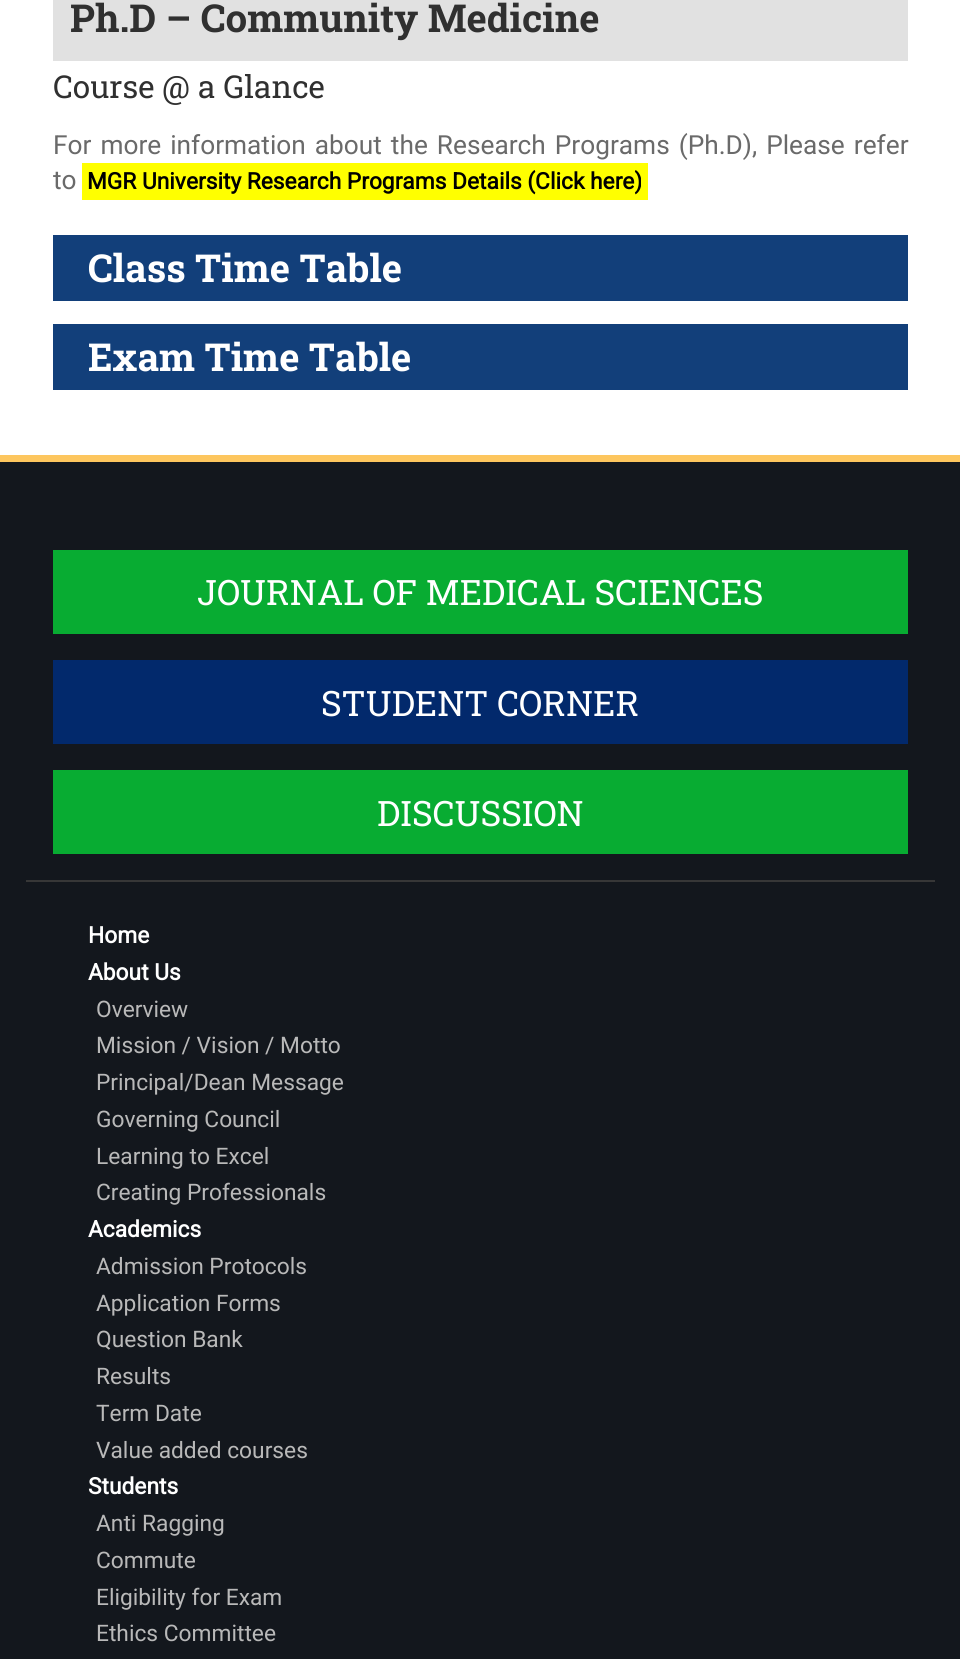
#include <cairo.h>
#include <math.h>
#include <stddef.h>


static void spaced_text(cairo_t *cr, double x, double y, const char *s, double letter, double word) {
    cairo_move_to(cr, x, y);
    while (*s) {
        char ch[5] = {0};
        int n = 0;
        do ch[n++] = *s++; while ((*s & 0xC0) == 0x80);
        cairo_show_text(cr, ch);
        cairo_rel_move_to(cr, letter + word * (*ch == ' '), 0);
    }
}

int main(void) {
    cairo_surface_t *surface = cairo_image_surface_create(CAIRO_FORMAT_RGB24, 960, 1659);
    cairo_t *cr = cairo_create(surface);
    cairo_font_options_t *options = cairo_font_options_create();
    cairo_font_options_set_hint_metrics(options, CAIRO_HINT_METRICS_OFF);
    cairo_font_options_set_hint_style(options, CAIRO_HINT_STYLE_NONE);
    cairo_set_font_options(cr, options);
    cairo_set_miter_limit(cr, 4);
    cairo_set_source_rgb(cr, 1, 1, 1);
    cairo_paint(cr);
    cairo_set_source_rgb(cr, 0.882, 0.882, 0.882);
    cairo_rectangle(cr, 53, 0, 855, 61);
    cairo_fill(cr);
    cairo_select_font_face(cr, "Roboto Slab", CAIRO_FONT_SLANT_NORMAL, CAIRO_FONT_WEIGHT_BOLD);
    cairo_set_font_size(cr, 38.5);
    cairo_set_source_rgb(cr, 0.188, 0.188, 0.188);
    cairo_move_to(cr, 70, 32);
    cairo_show_text(cr, "Ph.D – Community Medicine");
    cairo_select_font_face(cr, "Roboto Slab", CAIRO_FONT_SLANT_NORMAL, CAIRO_FONT_WEIGHT_NORMAL);
    cairo_set_font_size(cr, 31.5);
    cairo_move_to(cr, 53, 98);
    cairo_show_text(cr, "Course @ a Glance");
    cairo_select_font_face(cr, "Roboto", CAIRO_FONT_SLANT_NORMAL, CAIRO_FONT_WEIGHT_NORMAL);
    cairo_set_font_size(cr, 26.25);
    cairo_set_source_rgb(cr, 0.416, 0.416, 0.416);
    spaced_text(cr, 53, 154, "For more information about the Research Programs (Ph.D), Please refer", 0, 2.5);
    cairo_move_to(cr, 53, 189);
    cairo_show_text(cr, "to");
    cairo_set_source_rgb(cr, 1, 1, 0);
    cairo_rectangle(cr, 82, 163, 566, 37);
    cairo_fill(cr);
    cairo_select_font_face(cr, "Roboto", CAIRO_FONT_SLANT_NORMAL, CAIRO_FONT_WEIGHT_BOLD);
    cairo_set_font_size(cr, 22.75);
    cairo_set_source_rgb(cr, 0, 0, 0);
    cairo_move_to(cr, 87, 189);
    cairo_show_text(cr, "MGR University Research Programs Details (Click here)");
    cairo_set_source_rgb(cr, 0.071, 0.247, 0.478);
    cairo_rectangle(cr, 53, 235, 855, 66);
    cairo_fill(cr);
    cairo_select_font_face(cr, "Roboto Slab", CAIRO_FONT_SLANT_NORMAL, CAIRO_FONT_WEIGHT_BOLD);
    cairo_set_font_size(cr, 38.5);
    cairo_set_source_rgb(cr, 1, 1, 1);
    cairo_move_to(cr, 88, 282);
    cairo_show_text(cr, "Class Time Table");
    cairo_set_source_rgb(cr, 0.071, 0.247, 0.478);
    cairo_rectangle(cr, 53, 324, 855, 66);
    cairo_fill(cr);
    cairo_set_source_rgb(cr, 1, 1, 1);
    cairo_move_to(cr, 88, 371);
    cairo_show_text(cr, "Exam Time Table");
    cairo_set_source_rgb(cr, 0.075, 0.09, 0.114);
    cairo_rectangle(cr, 0, 462, 960, 1197);
    cairo_fill(cr);
    cairo_set_source_rgb(cr, 0.992, 0.776, 0.369);
    cairo_rectangle(cr, 0, 455, 960, 7);
    cairo_fill(cr);
    cairo_set_source_rgb(cr, 0.035, 0.675, 0.196);
    cairo_rectangle(cr, 53, 550, 855, 84);
    cairo_fill(cr);
    cairo_select_font_face(cr, "Roboto Slab", CAIRO_FONT_SLANT_NORMAL, CAIRO_FONT_WEIGHT_NORMAL);
    cairo_set_font_size(cr, 35);
    cairo_set_source_rgb(cr, 1, 1, 1);
    cairo_move_to(cr, 197, 605);
    cairo_show_text(cr, "JOURNAL OF MEDICAL SCIENCES");
    cairo_set_source_rgb(cr, 0.008, 0.161, 0.424);
    cairo_rectangle(cr, 53, 660, 855, 84);
    cairo_fill(cr);
    cairo_set_source_rgb(cr, 1, 1, 1);
    cairo_move_to(cr, 321, 716);
    cairo_show_text(cr, "STUDENT CORNER");
    cairo_set_source_rgb(cr, 0.035, 0.675, 0.196);
    cairo_rectangle(cr, 53, 770, 855, 84);
    cairo_fill(cr);
    cairo_set_source_rgb(cr, 1, 1, 1);
    cairo_move_to(cr, 377, 826);
    cairo_show_text(cr, "DISCUSSION");
    cairo_set_source_rgb(cr, 0.216, 0.216, 0.216);
    cairo_rectangle(cr, 26, 880, 909, 2);
    cairo_fill(cr);
    cairo_select_font_face(cr, "Roboto", CAIRO_FONT_SLANT_NORMAL, CAIRO_FONT_WEIGHT_BOLD);
    cairo_set_font_size(cr, 22.75);
    cairo_set_source_rgb(cr, 1, 1, 1);
    cairo_move_to(cr, 88, 943);
    cairo_show_text(cr, "Home");
    cairo_move_to(cr, 88, 980);
    cairo_show_text(cr, "About Us");
    cairo_select_font_face(cr, "Roboto", CAIRO_FONT_SLANT_NORMAL, CAIRO_FONT_WEIGHT_NORMAL);
    cairo_set_source_rgb(cr, 0.725, 0.725, 0.725);
    cairo_move_to(cr, 96, 1017);
    cairo_show_text(cr, "Overview");
    cairo_move_to(cr, 96, 1053);
    cairo_show_text(cr, "Mission / Vision / Motto");
    cairo_move_to(cr, 96, 1090);
    cairo_show_text(cr, "Principal/Dean Message");
    cairo_move_to(cr, 96, 1127);
    cairo_show_text(cr, "Governing Council");
    cairo_move_to(cr, 96, 1164);
    cairo_show_text(cr, "Learning to Excel");
    cairo_move_to(cr, 96, 1200);
    cairo_show_text(cr, "Creating Professionals");
    cairo_select_font_face(cr, "Roboto", CAIRO_FONT_SLANT_NORMAL, CAIRO_FONT_WEIGHT_BOLD);
    cairo_set_source_rgb(cr, 1, 1, 1);
    cairo_move_to(cr, 88, 1237);
    cairo_show_text(cr, "Academics");
    cairo_select_font_face(cr, "Roboto", CAIRO_FONT_SLANT_NORMAL, CAIRO_FONT_WEIGHT_NORMAL);
    cairo_set_source_rgb(cr, 0.725, 0.725, 0.725);
    cairo_move_to(cr, 96, 1274);
    cairo_show_text(cr, "Admission Protocols");
    cairo_move_to(cr, 96, 1311);
    cairo_show_text(cr, "Application Forms");
    cairo_move_to(cr, 96, 1347);
    cairo_show_text(cr, "Question Bank");
    cairo_move_to(cr, 96, 1384);
    cairo_show_text(cr, "Results");
    cairo_move_to(cr, 96, 1421);
    cairo_show_text(cr, "Term Date");
    cairo_move_to(cr, 96, 1458);
    cairo_show_text(cr, "Value added courses");
    cairo_select_font_face(cr, "Roboto", CAIRO_FONT_SLANT_NORMAL, CAIRO_FONT_WEIGHT_BOLD);
    cairo_set_source_rgb(cr, 1, 1, 1);
    cairo_move_to(cr, 88, 1494);
    cairo_show_text(cr, "Students");
    cairo_select_font_face(cr, "Roboto", CAIRO_FONT_SLANT_NORMAL, CAIRO_FONT_WEIGHT_NORMAL);
    cairo_set_source_rgb(cr, 0.725, 0.725, 0.725);
    cairo_move_to(cr, 96, 1531);
    cairo_show_text(cr, "Anti Ragging");
    cairo_move_to(cr, 96, 1568);
    cairo_show_text(cr, "Commute");
    cairo_move_to(cr, 96, 1605);
    cairo_show_text(cr, "Eligibility for Exam");
    cairo_move_to(cr, 96, 1641);
    cairo_show_text(cr, "Ethics Committee");
    cairo_surface_write_to_png(surface, "page.png");
    cairo_font_options_destroy(options);
    cairo_destroy(cr);
    cairo_surface_destroy(surface);
    return 0;
}
